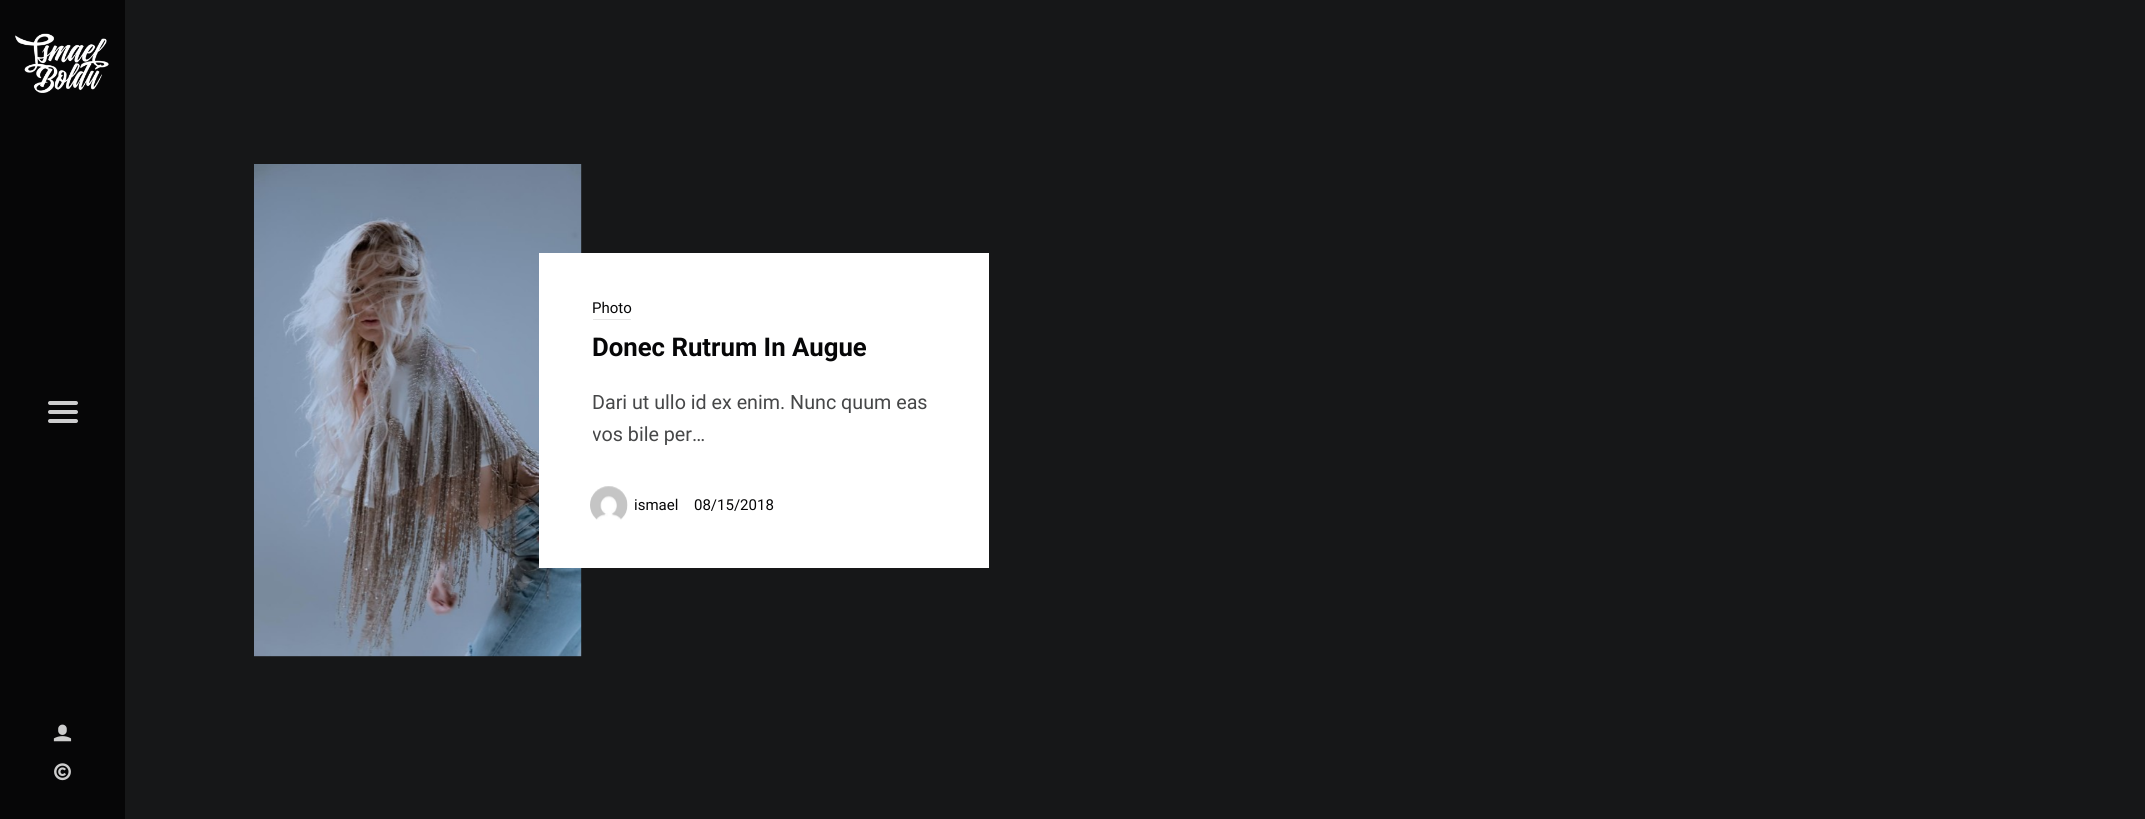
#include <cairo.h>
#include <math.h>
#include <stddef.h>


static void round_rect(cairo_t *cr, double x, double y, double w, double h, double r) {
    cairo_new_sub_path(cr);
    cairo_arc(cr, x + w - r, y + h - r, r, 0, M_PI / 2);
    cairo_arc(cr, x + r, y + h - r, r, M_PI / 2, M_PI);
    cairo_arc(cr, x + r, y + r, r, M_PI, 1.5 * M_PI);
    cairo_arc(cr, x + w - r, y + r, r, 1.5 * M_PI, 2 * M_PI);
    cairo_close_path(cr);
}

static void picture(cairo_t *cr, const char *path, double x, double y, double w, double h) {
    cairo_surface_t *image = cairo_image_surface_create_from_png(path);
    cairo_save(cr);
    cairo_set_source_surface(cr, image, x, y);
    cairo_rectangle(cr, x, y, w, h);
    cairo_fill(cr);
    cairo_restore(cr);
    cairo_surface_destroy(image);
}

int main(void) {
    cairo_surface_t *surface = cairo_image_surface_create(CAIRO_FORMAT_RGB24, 2145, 819);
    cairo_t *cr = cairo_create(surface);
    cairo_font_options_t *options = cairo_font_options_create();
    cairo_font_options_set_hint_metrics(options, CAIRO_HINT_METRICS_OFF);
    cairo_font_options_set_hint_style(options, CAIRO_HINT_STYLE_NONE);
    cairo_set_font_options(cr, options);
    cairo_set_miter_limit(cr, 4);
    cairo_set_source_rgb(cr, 0.086, 0.09, 0.094);
    cairo_paint(cr);
    cairo_set_source_rgb(cr, 0.024, 0.027, 0.031);
    cairo_rectangle(cr, 0, 0, 125, 819);
    cairo_fill(cr);
    picture(cr, "img1.png", 15, 33, 94, 60);
    cairo_set_source_rgb(cr, 0.804, 0.804, 0.808);
    round_rect(cr, 48, 401, 30, 4, 2);
    cairo_fill(cr);
    round_rect(cr, 48, 410, 30, 4, 2);
    cairo_fill(cr);
    round_rect(cr, 48, 419, 30, 4, 2);
    cairo_fill(cr);
    picture(cr, "img2.png", 53, 724, 19, 18);
    picture(cr, "img3.png", 54, 763, 17, 18);
    picture(cr, "img4.png", 254, 164, 328, 493);
    cairo_set_source_rgb(cr, 1, 1, 1);
    cairo_rectangle(cr, 539, 253, 450, 315);
    cairo_fill(cr);
    cairo_select_font_face(cr, "Roboto", CAIRO_FONT_SLANT_NORMAL, CAIRO_FONT_WEIGHT_NORMAL);
    cairo_set_font_size(cr, 15);
    cairo_set_source_rgb(cr, 0.024, 0.027, 0.031);
    cairo_move_to(cr, 592, 313);
    cairo_show_text(cr, "Photo");
    cairo_set_source_rgb(cr, 0.902, 0.902, 0.902);
    cairo_rectangle(cr, 593, 319, 38, 1);
    cairo_fill(cr);
    cairo_select_font_face(cr, "Roboto", CAIRO_FONT_SLANT_NORMAL, CAIRO_FONT_WEIGHT_BOLD);
    cairo_set_font_size(cr, 25.75);
    cairo_set_source_rgb(cr, 0.024, 0.027, 0.031);
    cairo_move_to(cr, 592, 356);
    cairo_show_text(cr, "Donec Rutrum In Augue");
    cairo_select_font_face(cr, "Roboto", CAIRO_FONT_SLANT_NORMAL, CAIRO_FONT_WEIGHT_NORMAL);
    cairo_set_font_size(cr, 19.7);
    cairo_set_source_rgb(cr, 0.275, 0.278, 0.282);
    cairo_move_to(cr, 592, 409);
    cairo_show_text(cr, "Dari ut ullo id ex enim. Nunc quum eas");
    cairo_save(cr);
    cairo_rectangle(cr, 593, 386, 342, 63);
    cairo_clip(cr);
    cairo_move_to(cr, 592, 441);
    cairo_show_text(cr, "vos bile per…");
    cairo_restore(cr);
    picture(cr, "img5.png", 590, 486, 38, 34);
    cairo_set_font_size(cr, 15);
    cairo_set_source_rgb(cr, 0.024, 0.027, 0.031);
    cairo_move_to(cr, 634, 510);
    cairo_show_text(cr, "ismael");
    cairo_move_to(cr, 694, 510);
    cairo_show_text(cr, "08/15/2018");
    cairo_surface_write_to_png(surface, "page.png");
    cairo_font_options_destroy(options);
    cairo_destroy(cr);
    cairo_surface_destroy(surface);
    return 0;
}
